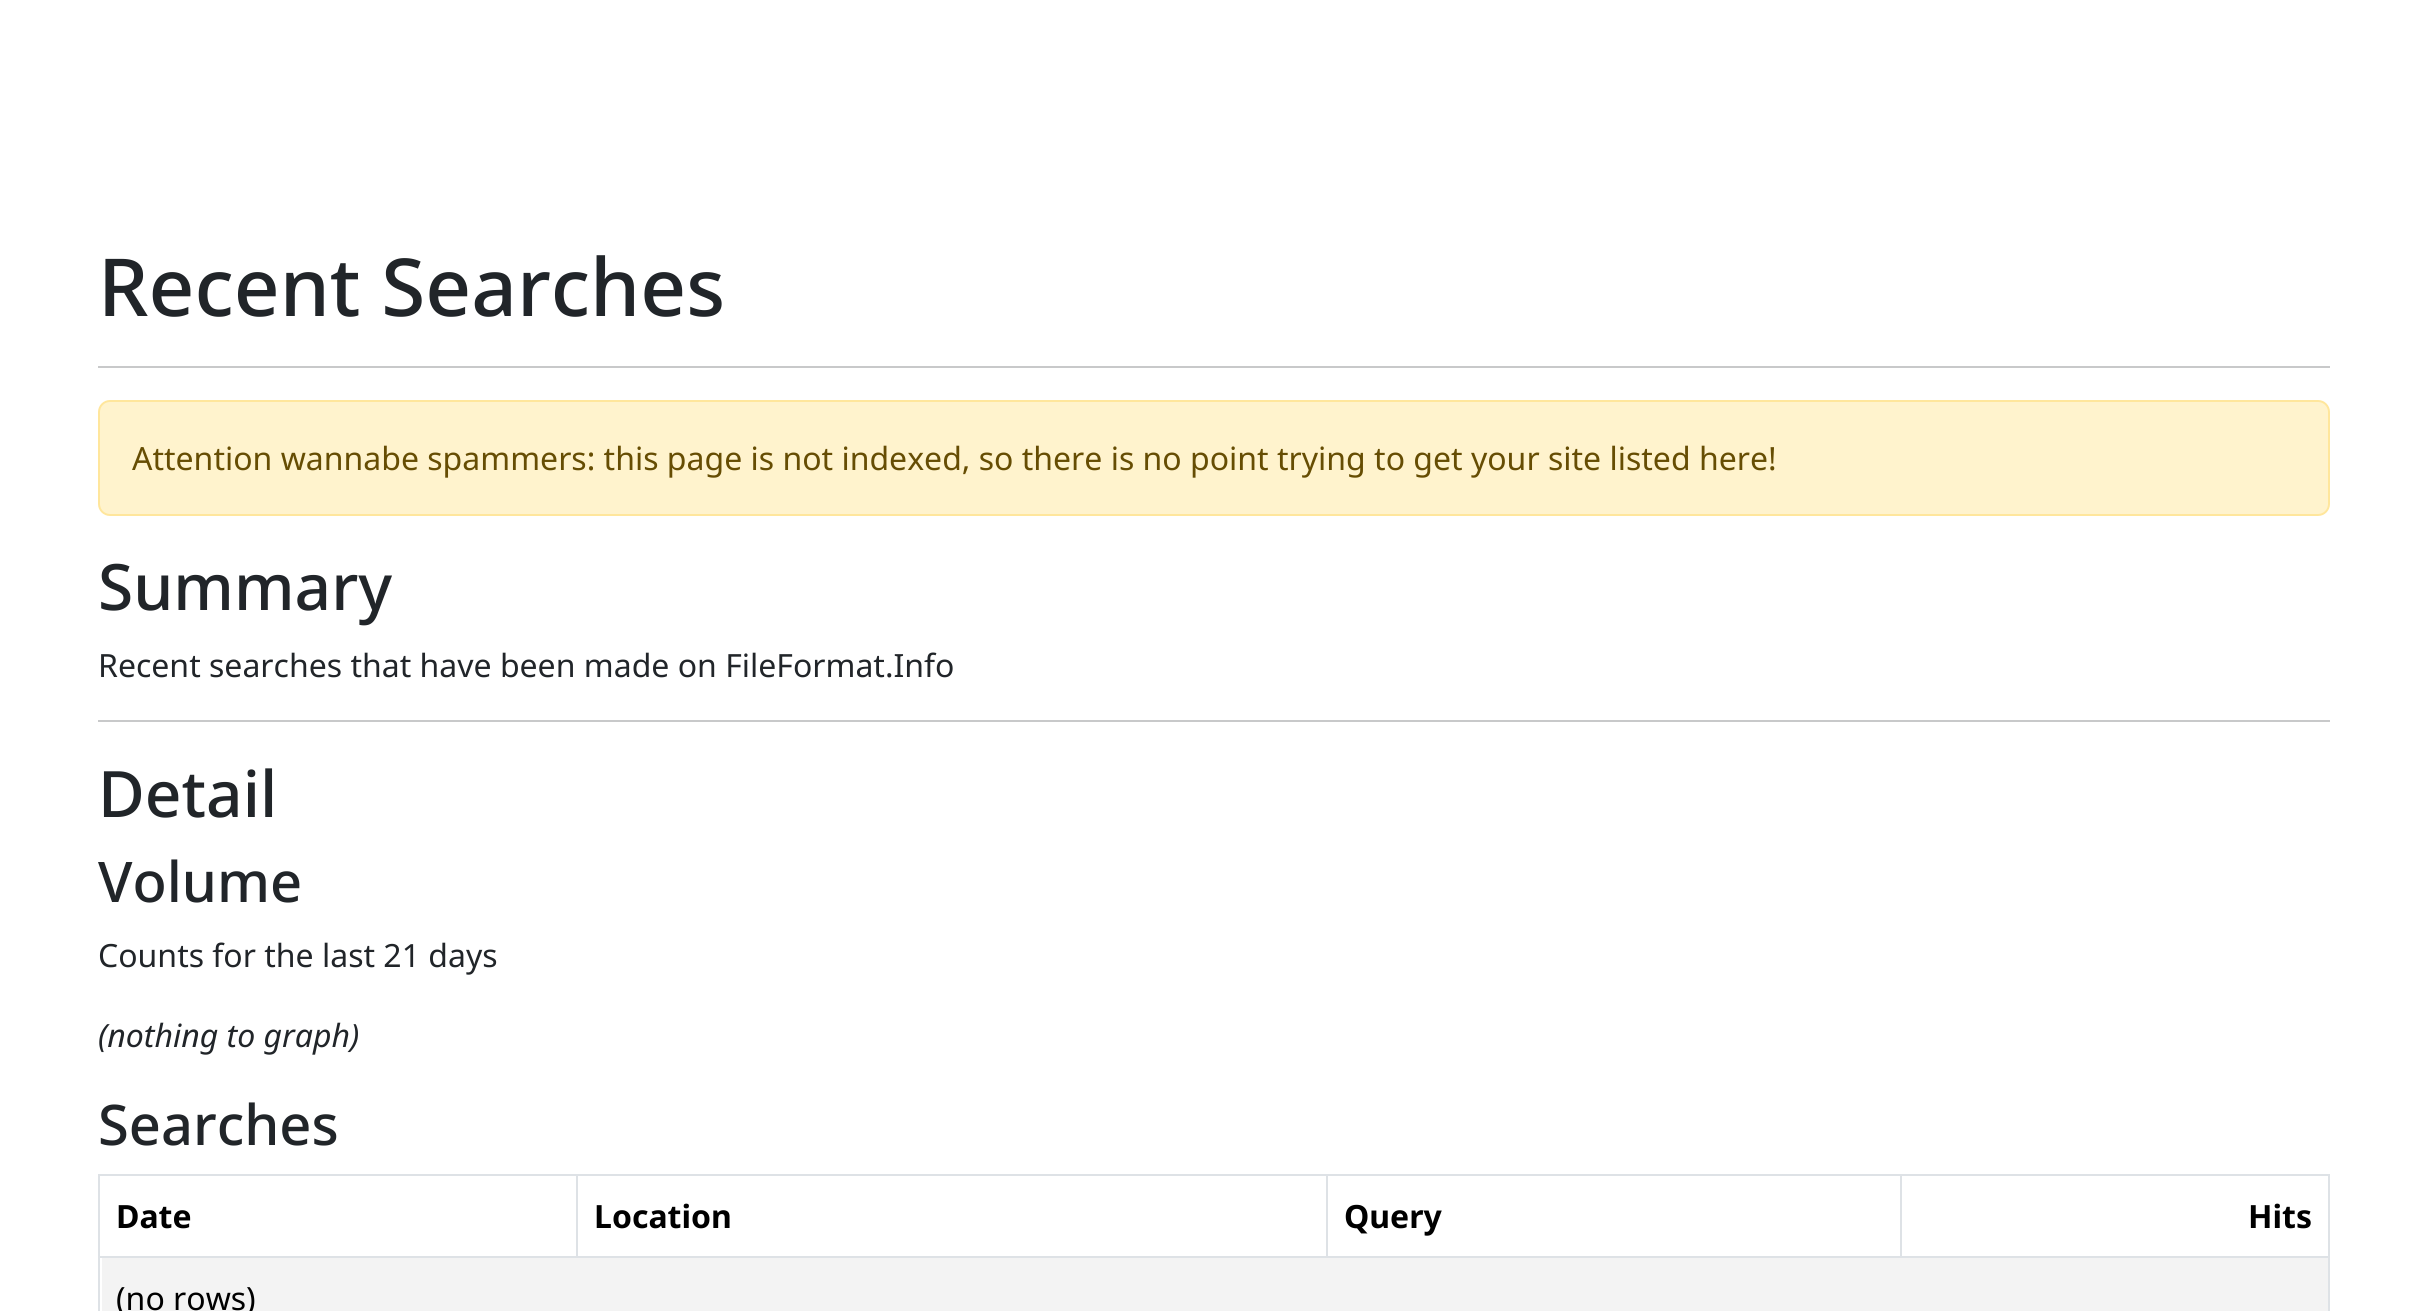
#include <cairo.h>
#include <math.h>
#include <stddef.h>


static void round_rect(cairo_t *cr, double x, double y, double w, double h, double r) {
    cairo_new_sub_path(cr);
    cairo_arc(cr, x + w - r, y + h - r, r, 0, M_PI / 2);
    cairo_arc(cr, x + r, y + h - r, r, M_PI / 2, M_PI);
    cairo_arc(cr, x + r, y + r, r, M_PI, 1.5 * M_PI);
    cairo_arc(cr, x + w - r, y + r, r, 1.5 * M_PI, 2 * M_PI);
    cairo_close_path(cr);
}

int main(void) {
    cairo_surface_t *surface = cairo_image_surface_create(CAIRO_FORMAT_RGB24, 2428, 1311);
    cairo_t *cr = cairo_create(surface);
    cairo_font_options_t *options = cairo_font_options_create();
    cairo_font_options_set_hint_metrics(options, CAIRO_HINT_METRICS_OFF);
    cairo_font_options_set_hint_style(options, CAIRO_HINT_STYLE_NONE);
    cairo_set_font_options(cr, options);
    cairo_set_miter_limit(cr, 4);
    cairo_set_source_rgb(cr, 1, 1, 1);
    cairo_paint(cr);
    cairo_select_font_face(cr, "Noto Sans Medium", CAIRO_FONT_SLANT_NORMAL, CAIRO_FONT_WEIGHT_NORMAL);
    cairo_set_font_size(cr, 80);
    cairo_set_source_rgb(cr, 0.129, 0.145, 0.161);
    cairo_move_to(cr, 98, 316);
    cairo_show_text(cr, "Recent Searches");
    cairo_set_source_rgb(cr, 0.784, 0.788, 0.792);
    cairo_rectangle(cr, 98, 366, 2232, 2);
    cairo_fill(cr);
    cairo_set_source_rgb(cr, 1, 0.953, 0.804);
    round_rect(cr, 99, 401, 2230, 114, 11);
    cairo_fill_preserve(cr);
    cairo_set_source_rgb(cr, 1, 0.902, 0.612);
    cairo_stroke(cr);
    cairo_select_font_face(cr, "Noto Sans", CAIRO_FONT_SLANT_NORMAL, CAIRO_FONT_WEIGHT_NORMAL);
    cairo_set_font_size(cr, 32);
    cairo_set_source_rgb(cr, 0.4, 0.302, 0.012);
    cairo_move_to(cr, 132, 470);
    cairo_show_text(cr, "Attention wannabe spammers: this page is not indexed, so there is no point trying to get your site listed here!");
    cairo_select_font_face(cr, "Noto Sans Medium", CAIRO_FONT_SLANT_NORMAL, CAIRO_FONT_WEIGHT_NORMAL);
    cairo_set_font_size(cr, 64);
    cairo_set_source_rgb(cr, 0.129, 0.145, 0.161);
    cairo_move_to(cr, 98, 610);
    cairo_show_text(cr, "Summary");
    cairo_select_font_face(cr, "Noto Sans", CAIRO_FONT_SLANT_NORMAL, CAIRO_FONT_WEIGHT_NORMAL);
    cairo_set_font_size(cr, 32);
    cairo_move_to(cr, 98, 677);
    cairo_show_text(cr, "Recent searches that have been made on FileFormat.Info");
    cairo_set_source_rgb(cr, 0.784, 0.788, 0.792);
    cairo_rectangle(cr, 98, 720, 2232, 2);
    cairo_fill(cr);
    cairo_select_font_face(cr, "Noto Sans Medium", CAIRO_FONT_SLANT_NORMAL, CAIRO_FONT_WEIGHT_NORMAL);
    cairo_set_font_size(cr, 64);
    cairo_set_source_rgb(cr, 0.129, 0.145, 0.161);
    cairo_move_to(cr, 98, 817);
    cairo_show_text(cr, "Detail");
    cairo_set_font_size(cr, 56);
    cairo_move_to(cr, 98, 902);
    cairo_show_text(cr, "Volume");
    cairo_select_font_face(cr, "Noto Sans", CAIRO_FONT_SLANT_NORMAL, CAIRO_FONT_WEIGHT_NORMAL);
    cairo_set_font_size(cr, 32);
    cairo_move_to(cr, 98, 967);
    cairo_show_text(cr, "Counts for the last 21 days");
    cairo_select_font_face(cr, "Noto Sans", CAIRO_FONT_SLANT_ITALIC, CAIRO_FONT_WEIGHT_NORMAL);
    cairo_move_to(cr, 98, 1047);
    cairo_show_text(cr, "(nothing to graph)");
    cairo_select_font_face(cr, "Noto Sans Medium", CAIRO_FONT_SLANT_NORMAL, CAIRO_FONT_WEIGHT_NORMAL);
    cairo_set_font_size(cr, 56);
    cairo_move_to(cr, 98, 1145);
    cairo_show_text(cr, "Searches");
    cairo_set_source_rgb(cr, 0.871, 0.886, 0.902);
    cairo_rectangle(cr, 98, 1174, 2232, 2);
    cairo_fill(cr);
    cairo_select_font_face(cr, "Noto Sans", CAIRO_FONT_SLANT_NORMAL, CAIRO_FONT_WEIGHT_BOLD);
    cairo_set_font_size(cr, 32);
    cairo_set_source_rgb(cr, 0, 0, 0);
    cairo_move_to(cr, 116, 1228);
    cairo_show_text(cr, "Date");
    cairo_set_source_rgb(cr, 0.871, 0.886, 0.902);
    cairo_rectangle(cr, 98, 1256, 2232, 2);
    cairo_fill(cr);
    cairo_rectangle(cr, 576, 1174, 2, 84);
    cairo_fill(cr);
    cairo_set_source_rgb(cr, 0, 0, 0);
    cairo_move_to(cr, 594, 1228);
    cairo_show_text(cr, "Location");
    cairo_set_source_rgb(cr, 0.871, 0.886, 0.902);
    cairo_rectangle(cr, 1326, 1174, 2, 84);
    cairo_fill(cr);
    cairo_set_source_rgb(cr, 0, 0, 0);
    cairo_move_to(cr, 1344, 1228);
    cairo_show_text(cr, "Query");
    cairo_set_source_rgb(cr, 0.871, 0.886, 0.902);
    cairo_rectangle(cr, 1900, 1174, 2, 84);
    cairo_fill(cr);
    cairo_set_source_rgb(cr, 0, 0, 0);
    cairo_move_to(cr, 2248, 1228);
    cairo_show_text(cr, "Hits");
    cairo_set_source_rgb(cr, 0.953, 0.953, 0.953);
    cairo_rectangle(cr, 102, 1258, 2226, 53);
    cairo_fill(cr);
    cairo_set_source_rgb(cr, 0.871, 0.886, 0.902);
    cairo_rectangle(cr, 2328, 1174, 2, 137);
    cairo_fill(cr);
    cairo_rectangle(cr, 98, 1174, 2, 137);
    cairo_fill(cr);
    cairo_select_font_face(cr, "Noto Sans", CAIRO_FONT_SLANT_NORMAL, CAIRO_FONT_WEIGHT_NORMAL);
    cairo_set_source_rgb(cr, 0, 0, 0);
    cairo_move_to(cr, 116, 1310);
    cairo_show_text(cr, "(no rows)");
    cairo_surface_write_to_png(surface, "page.png");
    cairo_font_options_destroy(options);
    cairo_destroy(cr);
    cairo_surface_destroy(surface);
    return 0;
}
